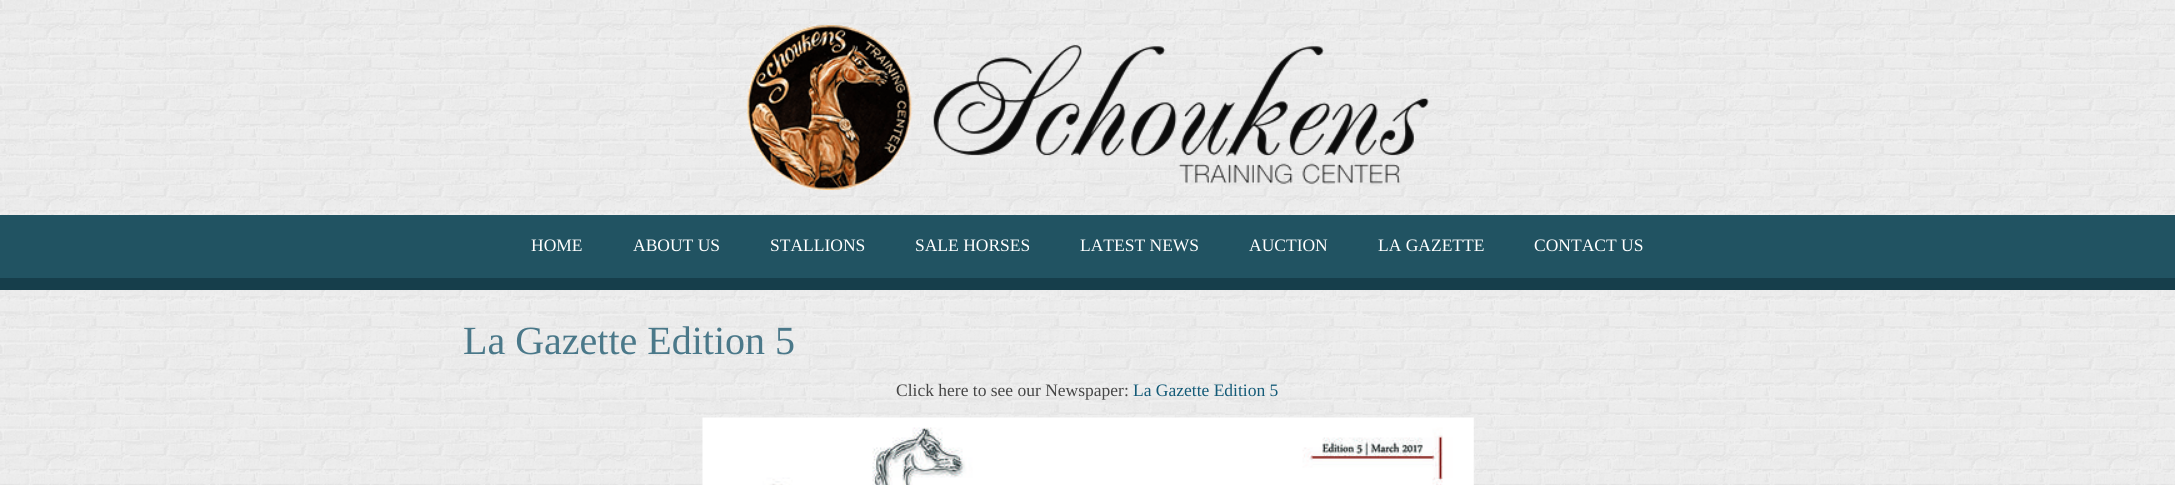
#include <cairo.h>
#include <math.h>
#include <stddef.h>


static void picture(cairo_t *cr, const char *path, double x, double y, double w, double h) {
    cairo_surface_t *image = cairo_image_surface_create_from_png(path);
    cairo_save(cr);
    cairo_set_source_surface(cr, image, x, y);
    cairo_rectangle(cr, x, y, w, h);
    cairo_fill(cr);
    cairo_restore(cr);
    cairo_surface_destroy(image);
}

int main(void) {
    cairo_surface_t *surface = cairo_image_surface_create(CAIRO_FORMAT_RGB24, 2175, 485);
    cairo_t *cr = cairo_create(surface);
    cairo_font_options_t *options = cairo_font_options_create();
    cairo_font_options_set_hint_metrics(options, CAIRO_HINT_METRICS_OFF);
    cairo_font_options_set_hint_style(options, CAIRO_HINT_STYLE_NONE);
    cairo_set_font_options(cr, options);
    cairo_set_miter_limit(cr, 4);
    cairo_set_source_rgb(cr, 1, 1, 1);
    cairo_paint(cr);
    picture(cr, "img1.png", 0, 0, 2175, 485);
    picture(cr, "img2.png", 747, 25, 682, 165);
    cairo_set_source_rgb(cr, 0.129, 0.325, 0.384);
    cairo_rectangle(cr, 0, 215, 2175, 63);
    cairo_fill(cr);
    cairo_set_source_rgb(cr, 0.086, 0.243, 0.294);
    cairo_rectangle(cr, 0, 278, 2175, 12);
    cairo_fill(cr);
    cairo_select_font_face(cr, "Liberation Serif", CAIRO_FONT_SLANT_NORMAL, CAIRO_FONT_WEIGHT_NORMAL);
    cairo_set_font_size(cr, 17.5);
    cairo_set_source_rgb(cr, 1, 1, 1);
    cairo_move_to(cr, 531, 251);
    cairo_show_text(cr, "HOME");
    cairo_move_to(cr, 633, 251);
    cairo_show_text(cr, "ABOUT US");
    cairo_move_to(cr, 770, 251);
    cairo_show_text(cr, "STALLIONS");
    cairo_move_to(cr, 915, 251);
    cairo_show_text(cr, "SALE HORSES");
    cairo_move_to(cr, 1080, 251);
    cairo_show_text(cr, "LATEST NEWS");
    cairo_move_to(cr, 1249, 251);
    cairo_show_text(cr, "AUCTION");
    cairo_move_to(cr, 1378, 251);
    cairo_show_text(cr, "LA GAZETTE");
    cairo_move_to(cr, 1534, 251);
    cairo_show_text(cr, "CONTACT US");
    cairo_set_font_size(cr, 40);
    cairo_set_source_rgb(cr, 0.29, 0.471, 0.537);
    cairo_move_to(cr, 463, 354);
    cairo_show_text(cr, "La Gazette Edition 5");
    cairo_set_font_size(cr, 17.5);
    cairo_set_source_rgb(cr, 0.275, 0.275, 0.275);
    cairo_move_to(cr, 896, 396);
    cairo_show_text(cr, "Click here to see our Newspaper:");
    cairo_set_source_rgb(cr, 0.078, 0.353, 0.467);
    cairo_move_to(cr, 1133, 396);
    cairo_show_text(cr, "La Gazette Edition 5");
    picture(cr, "img3.png", 702, 417, 772, 68);
    cairo_surface_write_to_png(surface, "page.png");
    cairo_font_options_destroy(options);
    cairo_destroy(cr);
    cairo_surface_destroy(surface);
    return 0;
}
